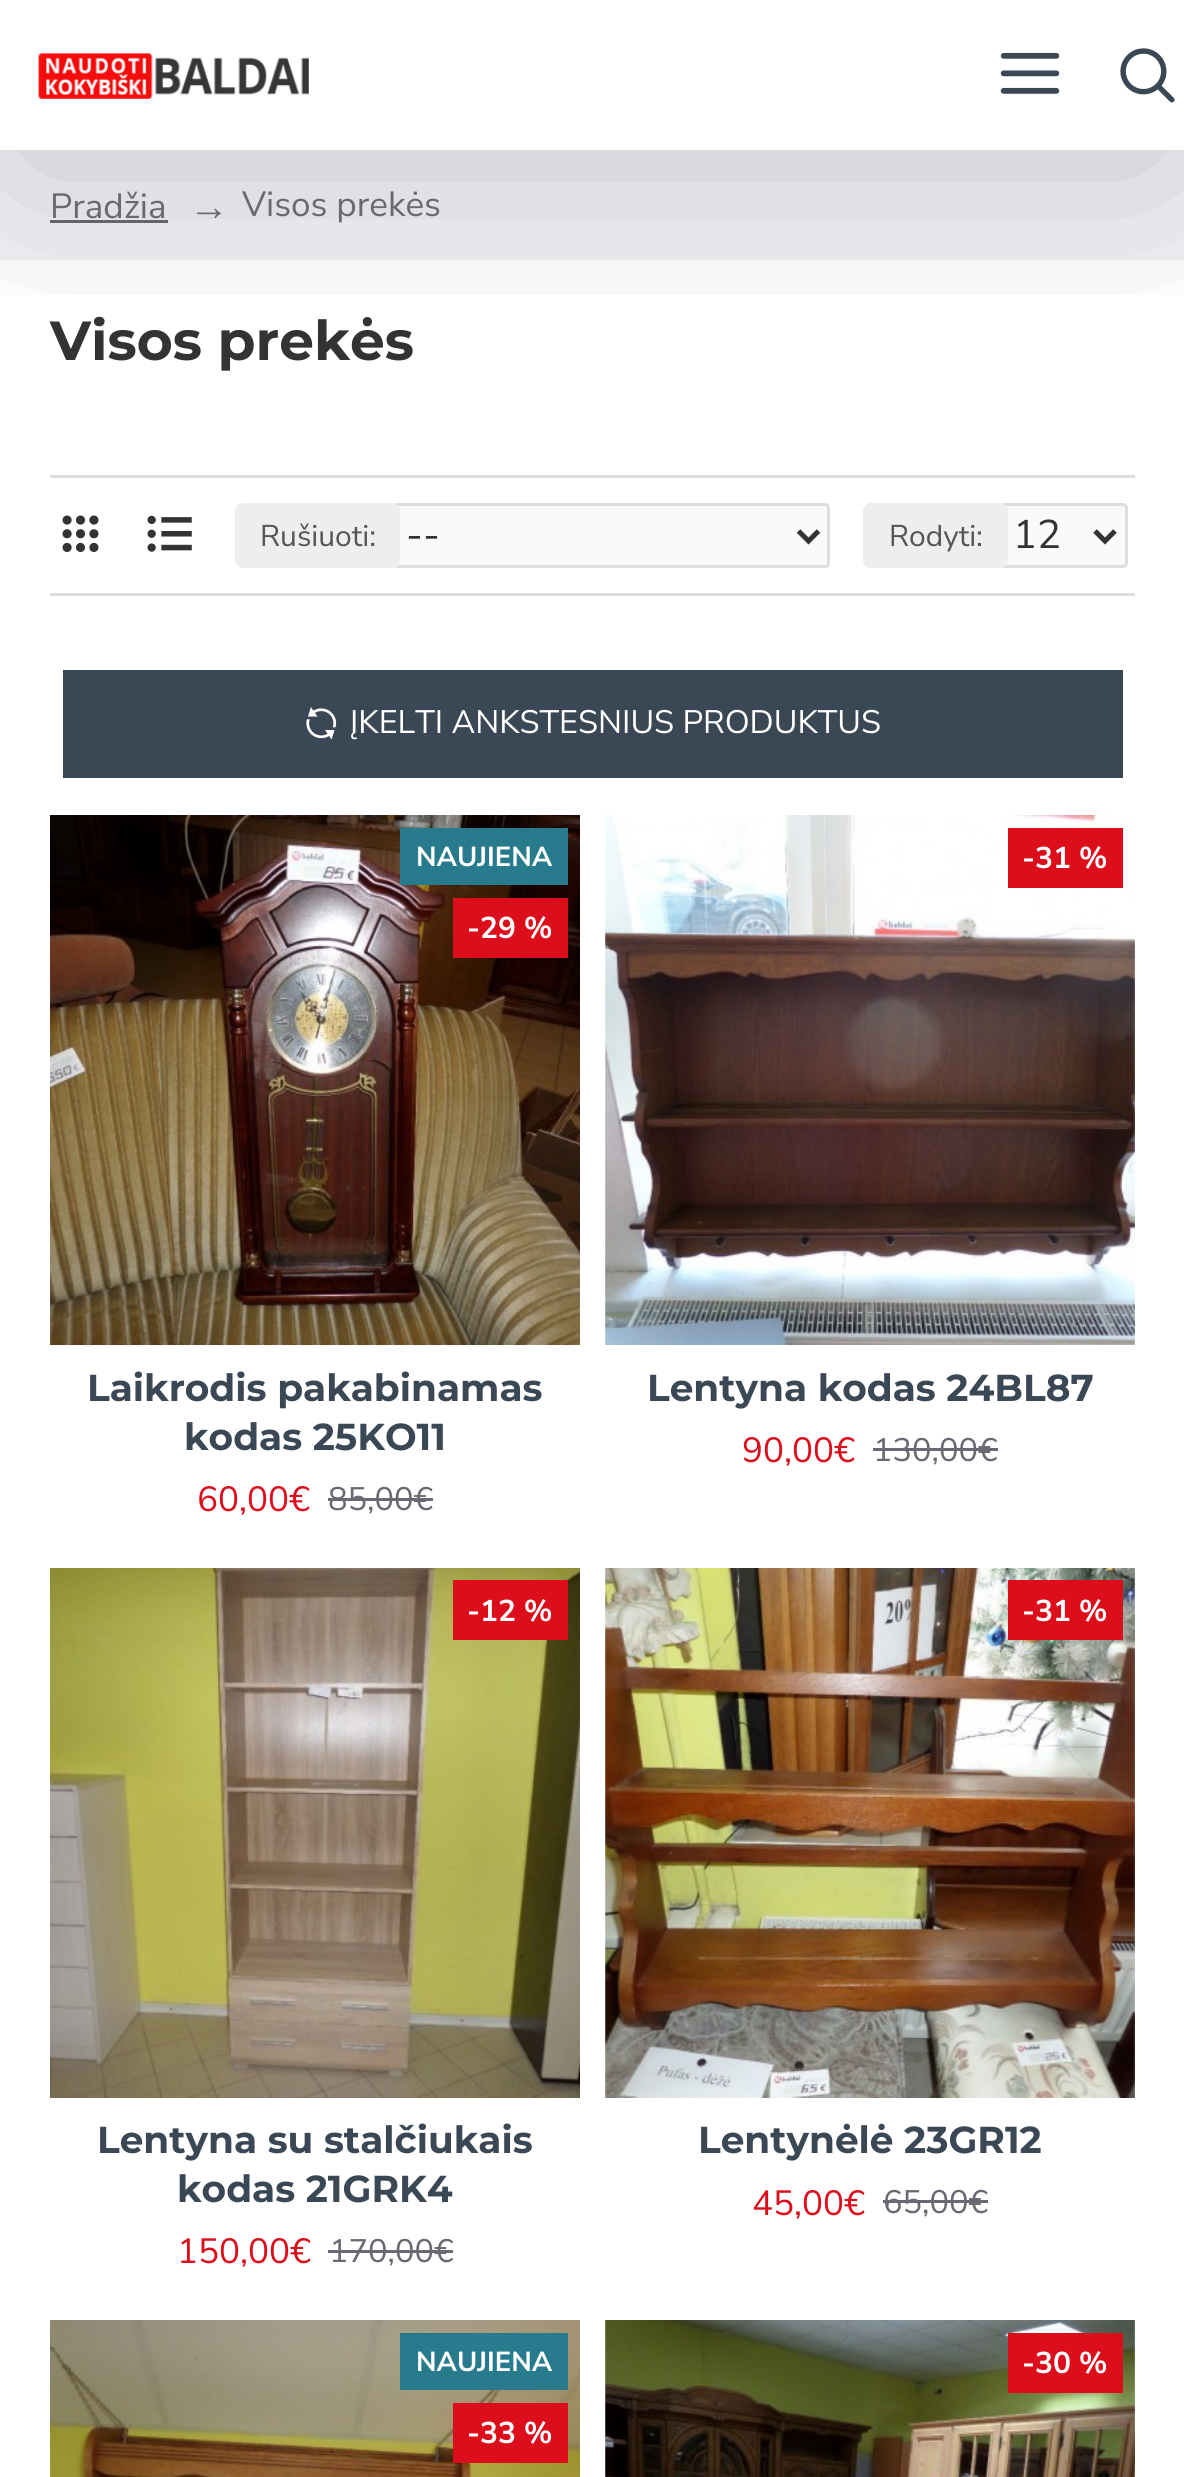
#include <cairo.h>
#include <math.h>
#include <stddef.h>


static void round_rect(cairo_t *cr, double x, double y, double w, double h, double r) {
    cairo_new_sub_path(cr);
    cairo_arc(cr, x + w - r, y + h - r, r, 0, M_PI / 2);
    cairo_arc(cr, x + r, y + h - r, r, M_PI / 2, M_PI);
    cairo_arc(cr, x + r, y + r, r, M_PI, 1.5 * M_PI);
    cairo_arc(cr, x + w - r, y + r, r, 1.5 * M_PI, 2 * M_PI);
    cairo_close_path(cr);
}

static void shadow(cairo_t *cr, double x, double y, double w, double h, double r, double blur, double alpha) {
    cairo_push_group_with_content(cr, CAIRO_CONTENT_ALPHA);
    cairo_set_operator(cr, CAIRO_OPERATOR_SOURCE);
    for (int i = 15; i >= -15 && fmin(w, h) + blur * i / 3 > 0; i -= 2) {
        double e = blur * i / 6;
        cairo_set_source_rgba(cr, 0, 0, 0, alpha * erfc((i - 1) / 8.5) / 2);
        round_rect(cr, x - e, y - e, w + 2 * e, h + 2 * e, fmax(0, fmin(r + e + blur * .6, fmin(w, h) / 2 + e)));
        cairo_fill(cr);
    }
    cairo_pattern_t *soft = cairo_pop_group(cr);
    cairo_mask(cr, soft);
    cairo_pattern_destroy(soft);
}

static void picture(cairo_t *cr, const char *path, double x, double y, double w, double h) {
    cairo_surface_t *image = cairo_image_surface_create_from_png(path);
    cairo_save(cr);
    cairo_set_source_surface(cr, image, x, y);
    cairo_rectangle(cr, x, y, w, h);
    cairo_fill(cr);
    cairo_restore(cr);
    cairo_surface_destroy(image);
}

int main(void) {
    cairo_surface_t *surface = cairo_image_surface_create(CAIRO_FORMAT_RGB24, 1184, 2477);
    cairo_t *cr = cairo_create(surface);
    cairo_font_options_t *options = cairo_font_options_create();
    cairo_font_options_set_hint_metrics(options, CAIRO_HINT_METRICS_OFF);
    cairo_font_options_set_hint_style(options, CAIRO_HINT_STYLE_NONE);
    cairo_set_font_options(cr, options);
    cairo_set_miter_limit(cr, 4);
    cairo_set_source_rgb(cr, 1, 1, 1);
    cairo_paint(cr);
    cairo_set_source_rgb(cr, 0.941, 0.949, 0.961);
    cairo_rectangle(cr, 0, 150, 1184, 110);
    cairo_fill(cr);
    cairo_set_source_rgb(cr, 0.412, 0.412, 0.451);
    cairo_rectangle(cr, 50, 220, 118, 3);
    cairo_fill(cr);
    cairo_set_source_rgb(cr, 0.867, 0.867, 0.867);
    cairo_rectangle(cr, 50, 475, 1085, 3);
    cairo_fill(cr);
    cairo_save(cr);
    cairo_rectangle(cr, 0, 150, 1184, 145);
    cairo_clip(cr);
    cairo_set_source_rgb(cr, 0, 0, 0);
    shadow(cr, 25, 63, 1135, 100, 0, 112.5, 0.2);
    cairo_restore(cr);
    picture(cr, "img1.png", 38, 53, 271, 46);
    picture(cr, "img2.png", 1000, 52, 60, 42);
    picture(cr, "img3.png", 1120, 48, 55, 55);
    cairo_select_font_face(cr, "Nunito Sans", CAIRO_FONT_SLANT_NORMAL, CAIRO_FONT_WEIGHT_NORMAL);
    cairo_set_font_size(cr, 35);
    cairo_set_source_rgb(cr, 0.412, 0.412, 0.451);
    cairo_move_to(cr, 50, 218);
    cairo_show_text(cr, "Pradžia");
    cairo_select_font_face(cr, "Liberation Serif", CAIRO_FONT_SLANT_NORMAL, CAIRO_FONT_WEIGHT_NORMAL);
    cairo_set_font_size(cr, 40);
    cairo_move_to(cr, 189, 220);
    cairo_show_text(cr, "→");
    cairo_select_font_face(cr, "Nunito Sans", CAIRO_FONT_SLANT_NORMAL, CAIRO_FONT_WEIGHT_NORMAL);
    cairo_set_font_size(cr, 35);
    cairo_move_to(cr, 242, 216);
    cairo_show_text(cr, "Visos prekės");
    cairo_select_font_face(cr, "Montserrat", CAIRO_FONT_SLANT_NORMAL, CAIRO_FONT_WEIGHT_BOLD);
    cairo_set_font_size(cr, 55);
    cairo_set_source_rgb(cr, 0.2, 0.2, 0.2);
    cairo_move_to(cr, 50, 360);
    cairo_show_text(cr, "Visos prekės");
    cairo_set_source_rgb(cr, 0.867, 0.867, 0.867);
    cairo_rectangle(cr, 50, 593, 1085, 3);
    cairo_fill(cr);
    picture(cr, "img4.png", 62, 515, 37, 37);
    picture(cr, "img5.png", 147, 515, 45, 37);
    cairo_set_source_rgb(cr, 0.98, 0.98, 0.98);
    round_rect(cr, 394.5, 504.5, 434, 62, 3.5);
    cairo_fill_preserve(cr);
    cairo_set_source_rgb(cr, 0.867, 0.867, 0.867);
    cairo_set_line_width(cr, 3);
    cairo_stroke(cr);
    cairo_set_source_rgb(cr, 0.933, 0.933, 0.933);
    round_rect(cr, 235, 503, 165, 65, 8);
    cairo_fill(cr);
    cairo_select_font_face(cr, "Nunito Sans", CAIRO_FONT_SLANT_NORMAL, CAIRO_FONT_WEIGHT_NORMAL);
    cairo_set_font_size(cr, 30);
    cairo_set_source_rgb(cr, 0.333, 0.333, 0.333);
    cairo_move_to(cr, 260, 546);
    cairo_show_text(cr, "Rušiuoti:");
    cairo_new_path(cr);
    cairo_move_to(cr, 798.5, 531);
    cairo_line_to(cr, 808.5, 541);
    cairo_line_to(cr, 818.5, 531);
    cairo_set_source_rgb(cr, 0.2, 0.2, 0.2);
    cairo_set_line_width(cr, 5);
    cairo_stroke(cr);
    cairo_set_font_size(cr, 40);
    cairo_move_to(cr, 406, 548);
    cairo_show_text(cr, "--");
    cairo_set_source_rgb(cr, 0.98, 0.98, 0.98);
    round_rect(cr, 1001.5, 504.5, 125, 62, 3.5);
    cairo_fill_preserve(cr);
    cairo_set_source_rgb(cr, 0.867, 0.867, 0.867);
    cairo_set_line_width(cr, 3);
    cairo_stroke(cr);
    cairo_set_source_rgb(cr, 0.933, 0.933, 0.933);
    round_rect(cr, 863, 503, 145, 65, 8);
    cairo_fill(cr);
    cairo_set_font_size(cr, 30);
    cairo_set_source_rgb(cr, 0.333, 0.333, 0.333);
    cairo_move_to(cr, 889, 546);
    cairo_show_text(cr, "Rodyti:");
    cairo_new_path(cr);
    cairo_move_to(cr, 1095, 531);
    cairo_line_to(cr, 1105, 541);
    cairo_line_to(cr, 1115, 531);
    cairo_set_source_rgb(cr, 0.2, 0.2, 0.2);
    cairo_set_line_width(cr, 5);
    cairo_stroke(cr);
    cairo_set_font_size(cr, 40);
    cairo_move_to(cr, 1013, 548);
    cairo_show_text(cr, "12");
    cairo_set_source_rgb(cr, 0.227, 0.278, 0.329);
    cairo_rectangle(cr, 63, 670, 1060, 108);
    cairo_fill(cr);
    picture(cr, "img6.png", 306, 707, 31, 33);
    cairo_set_font_size(cr, 32.5);
    cairo_set_source_rgb(cr, 1, 1, 1);
    cairo_move_to(cr, 350, 733);
    cairo_show_text(cr, "ĮKELTI ANKSTESNIUS PRODUKTUS");
    picture(cr, "img7.png", 50, 815, 530, 530);
    cairo_set_source_rgb(cr, 0.153, 0.482, 0.549);
    cairo_rectangle(cr, 400, 828, 168, 57);
    cairo_fill(cr);
    cairo_select_font_face(cr, "Nunito Sans", CAIRO_FONT_SLANT_NORMAL, CAIRO_FONT_WEIGHT_BOLD);
    cairo_set_font_size(cr, 27.5);
    cairo_set_source_rgb(cr, 1, 1, 1);
    cairo_move_to(cr, 416, 866);
    cairo_show_text(cr, "NAUJIENA");
    cairo_set_source_rgb(cr, 0.867, 0.055, 0.11);
    cairo_rectangle(cr, 453, 898, 115, 60);
    cairo_fill(cr);
    cairo_set_font_size(cr, 30);
    cairo_set_source_rgb(cr, 1, 1, 1);
    cairo_move_to(cr, 467, 938);
    cairo_show_text(cr, "-29 %");
    cairo_select_font_face(cr, "Montserrat", CAIRO_FONT_SLANT_NORMAL, CAIRO_FONT_WEIGHT_BOLD);
    cairo_set_font_size(cr, 37.5);
    cairo_set_source_rgb(cr, 0.227, 0.278, 0.329);
    cairo_move_to(cr, 87, 1401);
    cairo_show_text(cr, "Laikrodis pakabinamas");
    cairo_move_to(cr, 184, 1450);
    cairo_show_text(cr, "kodas 25KO11");
    cairo_select_font_face(cr, "Nunito Sans", CAIRO_FONT_SLANT_NORMAL, CAIRO_FONT_WEIGHT_NORMAL);
    cairo_set_font_size(cr, 35);
    cairo_set_source_rgb(cr, 0.867, 0.055, 0.11);
    cairo_move_to(cr, 197, 1511);
    cairo_show_text(cr, "60,00€");
    cairo_set_font_size(cr, 32.5);
    cairo_set_source_rgb(cr, 0.412, 0.412, 0.451);
    cairo_move_to(cr, 328, 1510);
    cairo_show_text(cr, "85,00€");
    cairo_rectangle(cr, 328, 1498, 105, 3);
    cairo_fill(cr);
    picture(cr, "img8.png", 605, 815, 530, 530);
    cairo_set_source_rgb(cr, 0.867, 0.055, 0.11);
    cairo_rectangle(cr, 1008, 828, 115, 60);
    cairo_fill(cr);
    cairo_select_font_face(cr, "Nunito Sans", CAIRO_FONT_SLANT_NORMAL, CAIRO_FONT_WEIGHT_BOLD);
    cairo_set_font_size(cr, 30);
    cairo_set_source_rgb(cr, 1, 1, 1);
    cairo_move_to(cr, 1022, 868);
    cairo_show_text(cr, "-31 %");
    cairo_select_font_face(cr, "Montserrat", CAIRO_FONT_SLANT_NORMAL, CAIRO_FONT_WEIGHT_BOLD);
    cairo_set_font_size(cr, 37.5);
    cairo_set_source_rgb(cr, 0.227, 0.278, 0.329);
    cairo_move_to(cr, 647, 1401);
    cairo_show_text(cr, "Lentyna kodas 24BL87");
    cairo_select_font_face(cr, "Nunito Sans", CAIRO_FONT_SLANT_NORMAL, CAIRO_FONT_WEIGHT_NORMAL);
    cairo_set_font_size(cr, 35);
    cairo_set_source_rgb(cr, 0.867, 0.055, 0.11);
    cairo_move_to(cr, 742, 1462);
    cairo_show_text(cr, "90,00€");
    cairo_set_font_size(cr, 32.5);
    cairo_set_source_rgb(cr, 0.412, 0.412, 0.451);
    cairo_move_to(cr, 873, 1461);
    cairo_show_text(cr, "130,00€");
    cairo_rectangle(cr, 873, 1448, 125, 3);
    cairo_fill(cr);
    picture(cr, "img9.png", 50, 1568, 530, 530);
    cairo_set_source_rgb(cr, 0.867, 0.055, 0.11);
    cairo_rectangle(cr, 453, 1580, 115, 60);
    cairo_fill(cr);
    cairo_select_font_face(cr, "Nunito Sans", CAIRO_FONT_SLANT_NORMAL, CAIRO_FONT_WEIGHT_BOLD);
    cairo_set_font_size(cr, 30);
    cairo_set_source_rgb(cr, 1, 1, 1);
    cairo_move_to(cr, 467, 1621);
    cairo_show_text(cr, "-12 %");
    cairo_select_font_face(cr, "Montserrat", CAIRO_FONT_SLANT_NORMAL, CAIRO_FONT_WEIGHT_BOLD);
    cairo_set_font_size(cr, 37.5);
    cairo_set_source_rgb(cr, 0.227, 0.278, 0.329);
    cairo_move_to(cr, 97, 2153);
    cairo_show_text(cr, "Lentyna su stalčiukais");
    cairo_move_to(cr, 177, 2202);
    cairo_show_text(cr, "kodas 21GRK4");
    cairo_select_font_face(cr, "Nunito Sans", CAIRO_FONT_SLANT_NORMAL, CAIRO_FONT_WEIGHT_NORMAL);
    cairo_set_font_size(cr, 35);
    cairo_set_source_rgb(cr, 0.867, 0.055, 0.11);
    cairo_move_to(cr, 177, 2263);
    cairo_show_text(cr, "150,00€");
    cairo_set_font_size(cr, 32.5);
    cairo_set_source_rgb(cr, 0.412, 0.412, 0.451);
    cairo_move_to(cr, 329, 2262);
    cairo_show_text(cr, "170,00€");
    cairo_rectangle(cr, 328, 2250, 125, 3);
    cairo_fill(cr);
    picture(cr, "img10.png", 605, 1568, 530, 530);
    cairo_set_source_rgb(cr, 0.867, 0.055, 0.11);
    cairo_rectangle(cr, 1008, 1580, 115, 60);
    cairo_fill(cr);
    cairo_select_font_face(cr, "Nunito Sans", CAIRO_FONT_SLANT_NORMAL, CAIRO_FONT_WEIGHT_BOLD);
    cairo_set_font_size(cr, 30);
    cairo_set_source_rgb(cr, 1, 1, 1);
    cairo_move_to(cr, 1022, 1621);
    cairo_show_text(cr, "-31 %");
    cairo_select_font_face(cr, "Montserrat", CAIRO_FONT_SLANT_NORMAL, CAIRO_FONT_WEIGHT_BOLD);
    cairo_set_font_size(cr, 37.5);
    cairo_set_source_rgb(cr, 0.227, 0.278, 0.329);
    cairo_move_to(cr, 698, 2153);
    cairo_show_text(cr, "Lentynėlė 23GR12");
    cairo_select_font_face(cr, "Nunito Sans", CAIRO_FONT_SLANT_NORMAL, CAIRO_FONT_WEIGHT_NORMAL);
    cairo_set_font_size(cr, 35);
    cairo_set_source_rgb(cr, 0.867, 0.055, 0.11);
    cairo_move_to(cr, 752, 2215);
    cairo_show_text(cr, "45,00€");
    cairo_set_font_size(cr, 32.5);
    cairo_set_source_rgb(cr, 0.412, 0.412, 0.451);
    cairo_move_to(cr, 883, 2213);
    cairo_show_text(cr, "65,00€");
    cairo_rectangle(cr, 883, 2200, 105, 3);
    cairo_fill(cr);
    picture(cr, "img11.png", 50, 2320, 530, 157);
    cairo_set_source_rgb(cr, 0.153, 0.482, 0.549);
    cairo_rectangle(cr, 400, 2333, 168, 57);
    cairo_fill(cr);
    cairo_select_font_face(cr, "Nunito Sans", CAIRO_FONT_SLANT_NORMAL, CAIRO_FONT_WEIGHT_BOLD);
    cairo_set_font_size(cr, 27.5);
    cairo_set_source_rgb(cr, 1, 1, 1);
    cairo_move_to(cr, 416, 2371);
    cairo_show_text(cr, "NAUJIENA");
    cairo_set_source_rgb(cr, 0.867, 0.055, 0.11);
    cairo_rectangle(cr, 453, 2403, 115, 60);
    cairo_fill(cr);
    cairo_set_font_size(cr, 30);
    cairo_set_source_rgb(cr, 1, 1, 1);
    cairo_move_to(cr, 467, 2443);
    cairo_show_text(cr, "-33 %");
    picture(cr, "img12.png", 605, 2320, 530, 157);
    cairo_set_source_rgb(cr, 0.867, 0.055, 0.11);
    cairo_rectangle(cr, 1008, 2333, 115, 60);
    cairo_fill(cr);
    cairo_set_source_rgb(cr, 1, 1, 1);
    cairo_move_to(cr, 1022, 2373);
    cairo_show_text(cr, "-30 %");
    cairo_surface_write_to_png(surface, "page.png");
    cairo_font_options_destroy(options);
    cairo_destroy(cr);
    cairo_surface_destroy(surface);
    return 0;
}
